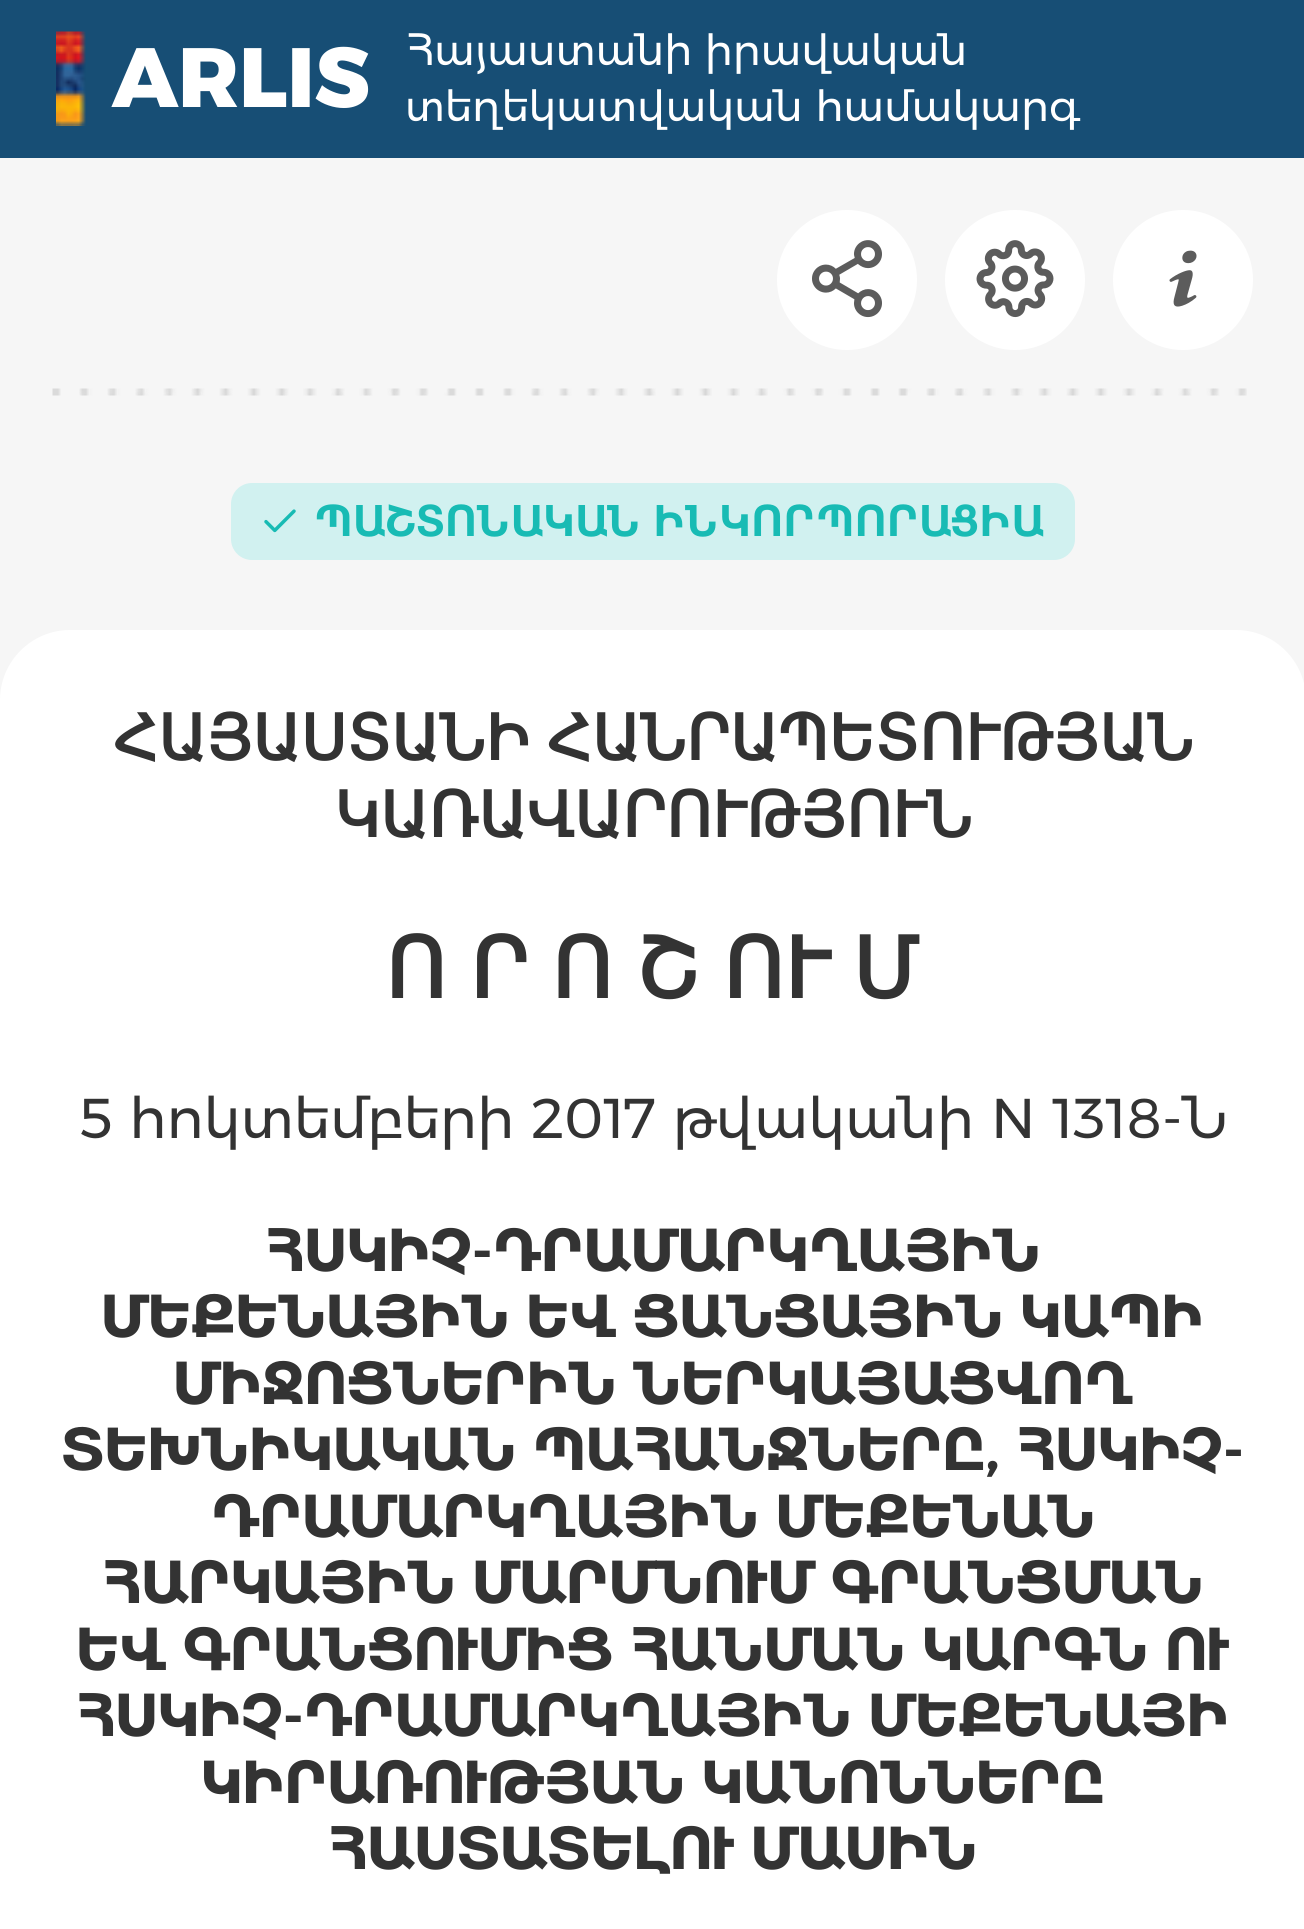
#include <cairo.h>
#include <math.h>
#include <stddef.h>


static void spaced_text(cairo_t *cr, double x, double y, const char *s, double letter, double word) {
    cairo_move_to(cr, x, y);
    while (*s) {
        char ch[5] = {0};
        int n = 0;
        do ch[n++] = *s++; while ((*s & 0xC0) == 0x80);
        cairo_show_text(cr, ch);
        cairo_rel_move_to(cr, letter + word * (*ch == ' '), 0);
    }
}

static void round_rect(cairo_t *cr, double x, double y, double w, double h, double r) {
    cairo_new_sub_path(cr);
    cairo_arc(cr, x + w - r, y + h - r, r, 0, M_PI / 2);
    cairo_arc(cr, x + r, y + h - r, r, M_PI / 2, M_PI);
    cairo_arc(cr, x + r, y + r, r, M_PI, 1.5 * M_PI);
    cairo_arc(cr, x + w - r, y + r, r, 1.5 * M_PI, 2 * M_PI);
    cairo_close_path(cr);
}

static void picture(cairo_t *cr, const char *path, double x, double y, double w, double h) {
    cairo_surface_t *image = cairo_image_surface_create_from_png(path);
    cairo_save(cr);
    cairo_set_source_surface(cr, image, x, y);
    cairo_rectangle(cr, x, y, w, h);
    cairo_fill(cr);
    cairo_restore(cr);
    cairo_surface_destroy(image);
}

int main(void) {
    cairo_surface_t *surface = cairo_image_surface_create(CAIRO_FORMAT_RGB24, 1304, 1929);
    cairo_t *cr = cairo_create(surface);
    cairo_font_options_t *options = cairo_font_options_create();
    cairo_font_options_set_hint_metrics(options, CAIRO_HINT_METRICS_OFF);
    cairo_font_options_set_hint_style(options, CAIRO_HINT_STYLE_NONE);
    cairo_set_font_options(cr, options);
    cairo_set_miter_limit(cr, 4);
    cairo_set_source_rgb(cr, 1, 1, 1);
    cairo_paint(cr);
    cairo_set_source_rgb(cr, 0.09, 0.306, 0.459);
    cairo_rectangle(cr, 0, 0, 1304, 158);
    cairo_fill(cr);
    picture(cr, "img1.png", 56, 31, 30, 95);
    cairo_select_font_face(cr, "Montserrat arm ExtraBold", CAIRO_FONT_SLANT_NORMAL, CAIRO_FONT_WEIGHT_NORMAL);
    cairo_set_font_size(cr, 84);
    cairo_set_source_rgb(cr, 1, 1, 1);
    cairo_move_to(cr, 112, 107);
    cairo_show_text(cr, "ARLIS");
    cairo_select_font_face(cr, "Montserrat arm", CAIRO_FONT_SLANT_NORMAL, CAIRO_FONT_WEIGHT_NORMAL);
    cairo_set_font_size(cr, 42);
    cairo_move_to(cr, 405, 65);
    cairo_show_text(cr, "Հայաստանի իրավական");
    cairo_move_to(cr, 405, 121);
    cairo_show_text(cr, "տեղեկատվական համակարգ");
    cairo_set_source_rgb(cr, 0.961, 0.961, 0.961);
    cairo_rectangle(cr, 0, 158, 1304, 542);
    cairo_fill(cr);
    cairo_set_source_rgb(cr, 1, 1, 1);
    cairo_arc(cr, 847, 280, 70, 0, 2 * M_PI);
    cairo_fill(cr);
    picture(cr, "img2.png", 812, 240, 70, 78);
    cairo_arc(cr, 1015, 280, 70, 0, 2 * M_PI);
    cairo_fill(cr);
    picture(cr, "img3.png", 976, 240, 78, 78);
    cairo_arc(cr, 1183, 280, 70, 0, 2 * M_PI);
    cairo_fill(cr);
    picture(cr, "img4.png", 1169, 250, 28, 57);
    picture(cr, "img5.png", 52, 388, 1195, 8);
    cairo_set_source_rgb(cr, 0.82, 0.945, 0.941);
    round_rect(cr, 231, 483, 844, 77, 21);
    cairo_fill(cr);
    picture(cr, "img6.png", 264, 509, 32, 24);
    cairo_select_font_face(cr, "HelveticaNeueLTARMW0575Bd", CAIRO_FONT_SLANT_NORMAL, CAIRO_FONT_WEIGHT_BOLD);
    cairo_set_source_rgb(cr, 0.094, 0.733, 0.706);
    spaced_text(cr, 314, 536, "ՊԱՇՏՈՆԱԿԱՆ ԻՆԿՈՐՊՈՐԱՑԻԱ", 0.8, 0);
    cairo_set_source_rgb(cr, 1, 1, 1);
    cairo_new_path(cr);
    cairo_move_to(cr, 70, 630);
    cairo_line_to(cr, 1236, 630);
    cairo_curve_to(cr, 1274.5, 630, 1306, 661.5, 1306, 700);
    cairo_line_to(cr, 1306, 1897);
    cairo_line_to(cr, 0, 1897);
    cairo_line_to(cr, 0, 700);
    cairo_curve_to(cr, 0, 661.5, 31.5, 630, 70, 630);
    cairo_close_path(cr);
    cairo_fill(cr);
    cairo_select_font_face(cr, "DejaVu Sans", CAIRO_FONT_SLANT_NORMAL, CAIRO_FONT_WEIGHT_BOLD);
    cairo_set_font_size(cr, 63);
    cairo_set_source_rgb(cr, 0.2, 0.2, 0.2);
    spaced_text(cr, 113, 760, "ՀԱՅԱՍՏԱՆԻ ՀԱՆՐԱՊԵՏՈՒԹՅԱՆ", 0, -2);
    cairo_move_to(cr, 334, 837);
    cairo_show_text(cr, "ԿԱՌԱՎԱՐՈՒԹՅՈՒՆ");
    cairo_set_font_size(cr, 84);
    spaced_text(cr, 385, 998, "Ո Ր Ո Շ ՈՒ Մ", 0, -3.5);
    cairo_select_font_face(cr, "Montserrat arm", CAIRO_FONT_SLANT_NORMAL, CAIRO_FONT_WEIGHT_NORMAL);
    cairo_set_font_size(cr, 56);
    cairo_move_to(cr, 78, 1138);
    cairo_show_text(cr, "5 հոկտեմբերի 2017 թվականի N 1318-Ն");
    cairo_select_font_face(cr, "Montserrat arm", CAIRO_FONT_SLANT_NORMAL, CAIRO_FONT_WEIGHT_BOLD);
    cairo_move_to(cr, 265, 1271);
    cairo_show_text(cr, "ՀՍԿԻՉ-ԴՐԱՄԱՐԿՂԱՅԻՆ");
    cairo_move_to(cr, 101, 1337);
    cairo_show_text(cr, "ՄԵՔԵՆԱՅԻՆ ԵՎ ՑԱՆՑԱՅԻՆ ԿԱՊԻ");
    cairo_move_to(cr, 173, 1404);
    cairo_show_text(cr, "ՄԻՋՈՑՆԵՐԻՆ ՆԵՐԿԱՅԱՑՎՈՂ");
    cairo_move_to(cr, 61, 1470);
    cairo_show_text(cr, "ՏԵԽՆԻԿԱԿԱՆ ՊԱՀԱՆՋՆԵՐԸ, ՀՍԿԻՉ-");
    cairo_move_to(cr, 211, 1537);
    cairo_show_text(cr, "ԴՐԱՄԱՐԿՂԱՅԻՆ ՄԵՔԵՆԱՆ");
    cairo_move_to(cr, 102, 1603);
    cairo_show_text(cr, "ՀԱՐԿԱՅԻՆ ՄԱՐՄՆՈՒՄ ԳՐԱՆՑՄԱՆ");
    cairo_move_to(cr, 76, 1670);
    cairo_show_text(cr, "ԵՎ ԳՐԱՆՑՈՒՄԻՑ ՀԱՆՄԱՆ ԿԱՐԳՆ ՈՒ");
    cairo_move_to(cr, 76, 1736);
    cairo_show_text(cr, "ՀՍԿԻՉ-ԴՐԱՄԱՐԿՂԱՅԻՆ ՄԵՔԵՆԱՅԻ");
    cairo_move_to(cr, 201, 1803);
    cairo_show_text(cr, "ԿԻՐԱՌՈՒԹՅԱՆ ԿԱՆՈՆՆԵՐԸ");
    cairo_move_to(cr, 328, 1869);
    cairo_show_text(cr, "ՀԱՍՏԱՏԵԼՈՒ ՄԱՍԻՆ");
    cairo_surface_write_to_png(surface, "page.png");
    cairo_font_options_destroy(options);
    cairo_destroy(cr);
    cairo_surface_destroy(surface);
    return 0;
}
